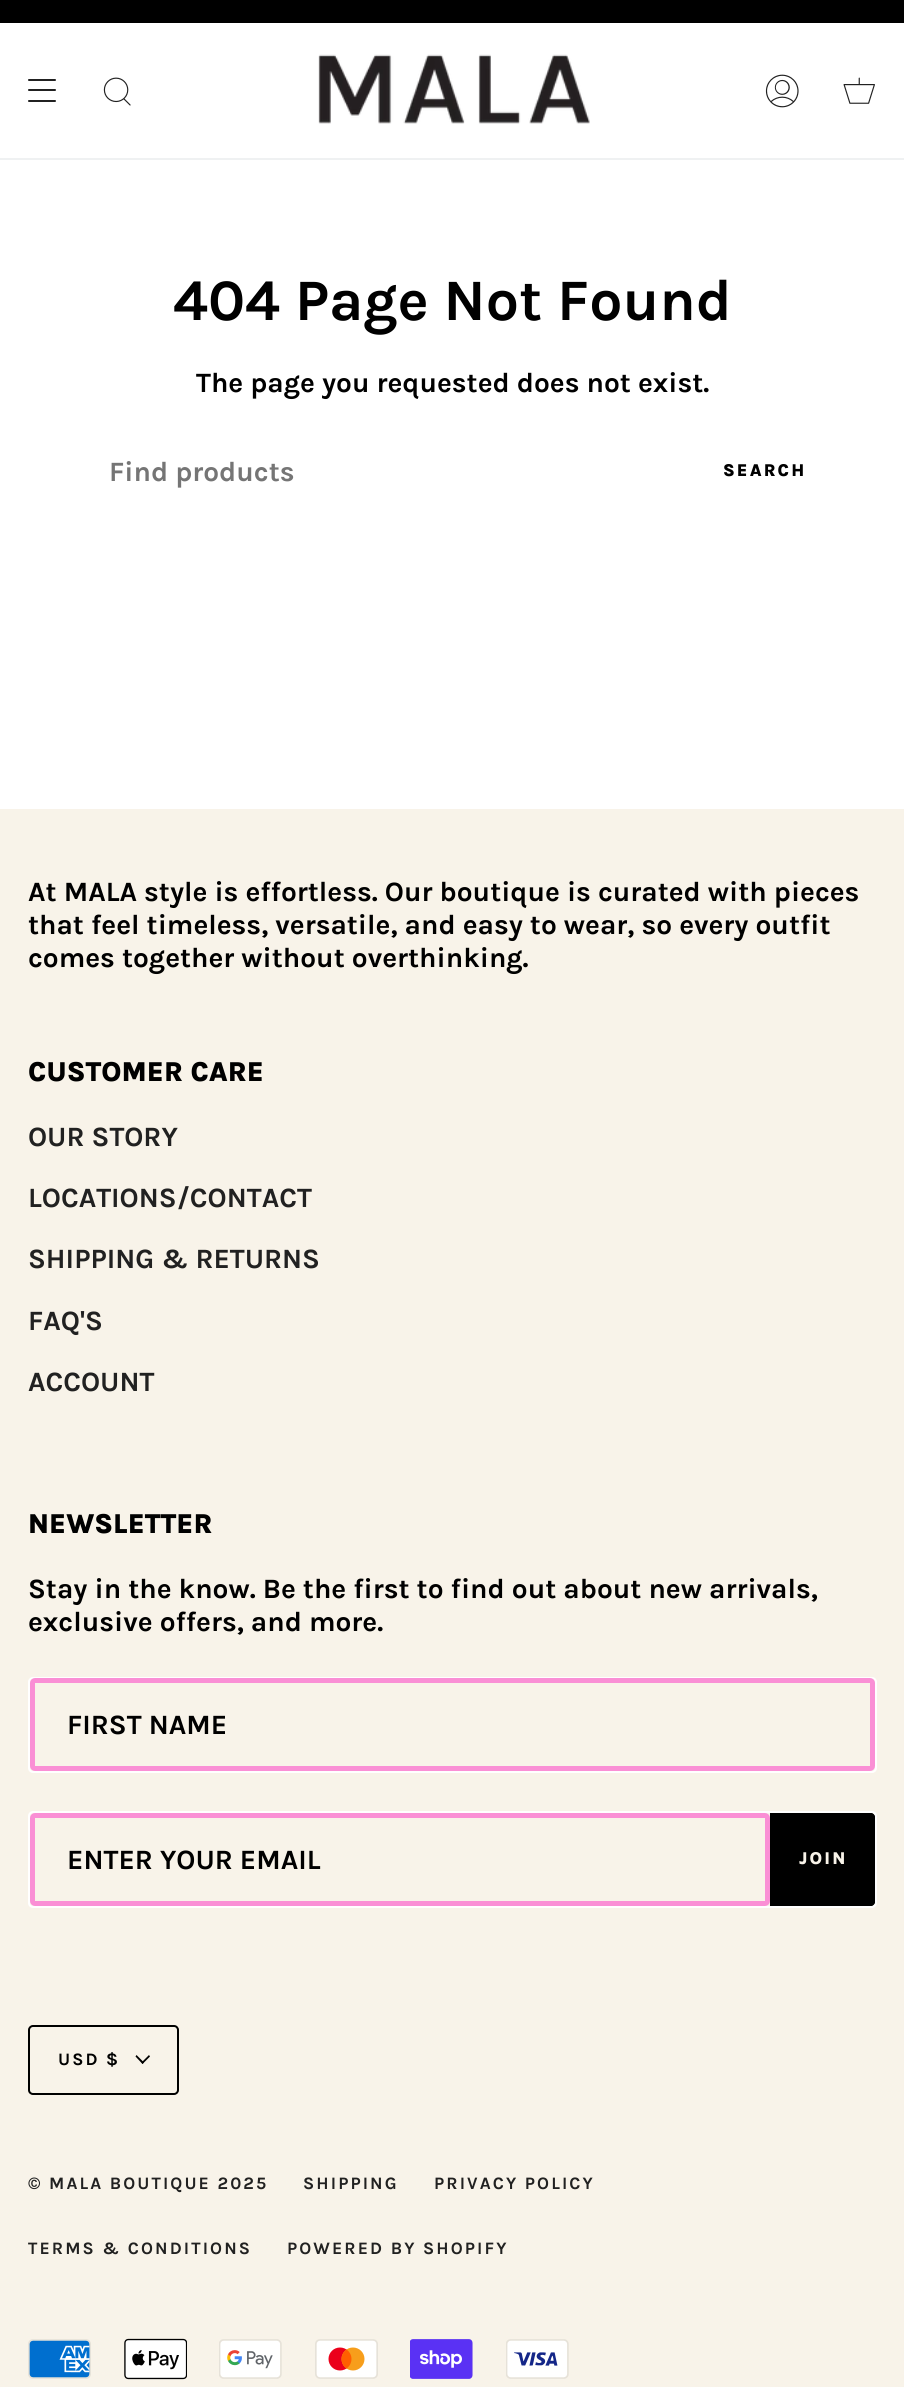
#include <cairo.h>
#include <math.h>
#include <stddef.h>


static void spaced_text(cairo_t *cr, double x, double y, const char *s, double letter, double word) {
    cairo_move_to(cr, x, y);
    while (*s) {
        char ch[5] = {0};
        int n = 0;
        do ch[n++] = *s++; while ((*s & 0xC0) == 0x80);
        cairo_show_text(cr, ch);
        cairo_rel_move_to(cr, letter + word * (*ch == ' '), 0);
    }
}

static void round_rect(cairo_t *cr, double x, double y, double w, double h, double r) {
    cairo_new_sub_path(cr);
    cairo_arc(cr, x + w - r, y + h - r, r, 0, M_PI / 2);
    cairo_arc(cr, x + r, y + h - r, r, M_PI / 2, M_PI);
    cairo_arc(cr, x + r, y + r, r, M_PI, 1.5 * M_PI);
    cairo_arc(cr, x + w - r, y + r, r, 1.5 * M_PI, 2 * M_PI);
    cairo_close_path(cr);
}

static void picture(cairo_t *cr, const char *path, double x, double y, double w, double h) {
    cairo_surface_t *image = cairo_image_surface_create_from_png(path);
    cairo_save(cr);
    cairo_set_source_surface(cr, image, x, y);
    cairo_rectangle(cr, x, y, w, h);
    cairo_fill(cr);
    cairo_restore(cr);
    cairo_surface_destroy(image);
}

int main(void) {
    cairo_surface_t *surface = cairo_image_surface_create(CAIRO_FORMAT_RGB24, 904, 2387);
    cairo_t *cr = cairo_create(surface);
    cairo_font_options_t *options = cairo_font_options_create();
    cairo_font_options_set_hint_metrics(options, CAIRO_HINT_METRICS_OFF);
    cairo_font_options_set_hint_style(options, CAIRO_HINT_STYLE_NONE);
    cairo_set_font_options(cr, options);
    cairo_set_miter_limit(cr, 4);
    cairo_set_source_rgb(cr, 1, 1, 1);
    cairo_paint(cr);
    cairo_set_source_rgb(cr, 0, 0, 0);
    cairo_rectangle(cr, 0, 0, 904, 23);
    cairo_fill(cr);
    cairo_set_source_rgb(cr, 0.937, 0.945, 0.949);
    cairo_rectangle(cr, 0, 158, 904, 2);
    cairo_fill(cr);
    cairo_set_source_rgb(cr, 0.129, 0.129, 0.129);
    round_rect(cr, 28, 79, 28, 2, 1);
    cairo_fill(cr);
    round_rect(cr, 28, 89, 28, 2, 1);
    cairo_fill(cr);
    round_rect(cr, 28, 100, 28, 2, 1);
    cairo_fill(cr);
    picture(cr, "img1.png", 103, 77, 28, 29);
    picture(cr, "img2.png", 318, 54, 272, 70);
    picture(cr, "img3.png", 765, 74, 34, 34);
    picture(cr, "img4.png", 843, 77, 32, 27);
    cairo_select_font_face(cr, "Karla", CAIRO_FONT_SLANT_NORMAL, CAIRO_FONT_WEIGHT_BOLD);
    cairo_set_font_size(cr, 58.75);
    cairo_set_source_rgb(cr, 0, 0, 0);
    cairo_move_to(cr, 173, 320);
    cairo_show_text(cr, "404 Page Not Found");
    cairo_set_font_size(cr, 28);
    cairo_move_to(cr, 196, 392);
    cairo_show_text(cr, "The page you requested does not exist.");
    cairo_set_source_rgb(cr, 0.459, 0.459, 0.459);
    cairo_move_to(cr, 109, 481);
    cairo_show_text(cr, "Find products");
    cairo_select_font_face(cr, "Karla ExtraBold", CAIRO_FONT_SLANT_NORMAL, CAIRO_FONT_WEIGHT_NORMAL);
    cairo_set_font_size(cr, 17.5);
    cairo_set_source_rgb(cr, 0, 0, 0);
    spaced_text(cr, 723, 476, "SEARCH", 2.1, 0);
    cairo_set_source_rgb(cr, 0.969, 0.953, 0.914);
    cairo_rectangle(cr, 0, 809, 904, 1578);
    cairo_fill(cr);
    cairo_select_font_face(cr, "Karla", CAIRO_FONT_SLANT_NORMAL, CAIRO_FONT_WEIGHT_BOLD);
    cairo_set_font_size(cr, 28);
    cairo_set_source_rgb(cr, 0, 0, 0);
    cairo_move_to(cr, 28, 901);
    cairo_show_text(cr, "At MALA style is effortless. Our boutique is curated with pieces");
    cairo_move_to(cr, 28, 934);
    cairo_show_text(cr, "that feel timeless, versatile, and easy to wear, so every outfit");
    cairo_move_to(cr, 28, 967);
    cairo_show_text(cr, "comes together without overthinking.");
    cairo_select_font_face(cr, "Karla ExtraBold", CAIRO_FONT_SLANT_NORMAL, CAIRO_FONT_WEIGHT_NORMAL);
    cairo_move_to(cr, 28, 1081);
    cairo_show_text(cr, "CUSTOMER CARE");
    cairo_select_font_face(cr, "Karla", CAIRO_FONT_SLANT_NORMAL, CAIRO_FONT_WEIGHT_BOLD);
    cairo_set_source_rgb(cr, 0.129, 0.129, 0.129);
    cairo_move_to(cr, 28, 1146);
    cairo_show_text(cr, "OUR STORY");
    cairo_move_to(cr, 28, 1207);
    cairo_show_text(cr, "LOCATIONS/CONTACT");
    cairo_move_to(cr, 28, 1268);
    cairo_show_text(cr, "SHIPPING & RETURNS");
    cairo_move_to(cr, 28, 1330);
    cairo_show_text(cr, "FAQ'S");
    cairo_move_to(cr, 28, 1391);
    cairo_show_text(cr, "ACCOUNT");
    cairo_select_font_face(cr, "Karla ExtraBold", CAIRO_FONT_SLANT_NORMAL, CAIRO_FONT_WEIGHT_NORMAL);
    cairo_set_source_rgb(cr, 0, 0, 0);
    cairo_move_to(cr, 28, 1533);
    cairo_show_text(cr, "NEWSLETTER");
    cairo_select_font_face(cr, "Karla", CAIRO_FONT_SLANT_NORMAL, CAIRO_FONT_WEIGHT_BOLD);
    cairo_move_to(cr, 28, 1598);
    cairo_show_text(cr, "Stay in the know. Be the first to find out about new arrivals,");
    cairo_move_to(cr, 28, 1631);
    cairo_show_text(cr, "exclusive offers, and more.");
    round_rect(cr, 29, 1678, 847, 94, 4);
    cairo_set_source_rgb(cr, 1, 1, 1);
    cairo_stroke(cr);
    round_rect(cr, 32.5, 1680.5, 840, 88, 2.5);
    cairo_set_source_rgb(cr, 0.98, 0.561, 0.835);
    cairo_set_line_width(cr, 5);
    cairo_stroke(cr);
    cairo_set_source_rgb(cr, 0, 0, 0);
    cairo_move_to(cr, 67, 1734);
    cairo_show_text(cr, "FIRST NAME");
    round_rect(cr, 29, 1812, 847, 95, 4);
    cairo_set_source_rgb(cr, 1, 1, 1);
    cairo_set_line_width(cr, 2);
    cairo_stroke(cr);
    round_rect(cr, 32.5, 1815.5, 735, 88, 2.5);
    cairo_set_source_rgb(cr, 0.98, 0.561, 0.835);
    cairo_set_line_width(cr, 5);
    cairo_stroke(cr);
    cairo_set_source_rgb(cr, 0, 0, 0);
    cairo_move_to(cr, 67, 1869);
    cairo_show_text(cr, "ENTER YOUR EMAIL");
    cairo_new_path(cr);
    cairo_move_to(cr, 770, 1813);
    cairo_line_to(cr, 871, 1813);
    cairo_curve_to(cr, 873, 1813, 875, 1815, 875, 1817);
    cairo_line_to(cr, 875, 1902);
    cairo_curve_to(cr, 875, 1904, 873, 1906, 871, 1906);
    cairo_line_to(cr, 770, 1906);
    cairo_close_path(cr);
    cairo_fill(cr);
    cairo_save(cr);
    round_rect(cr, 30, 1813, 845, 93, 4);
    cairo_clip(cr);
    round_rect(cr, 770, 1813, 105, 93, 5);
    cairo_fill(cr);
    cairo_restore(cr);
    cairo_select_font_face(cr, "Karla ExtraBold", CAIRO_FONT_SLANT_NORMAL, CAIRO_FONT_WEIGHT_NORMAL);
    cairo_set_font_size(cr, 17.5);
    cairo_set_source_rgb(cr, 0.969, 0.953, 0.914);
    spaced_text(cr, 799, 1864, "JOIN", 2.1, 0);
    round_rect(cr, 29, 2026, 149, 68, 4);
    cairo_set_source_rgb(cr, 0, 0, 0);
    cairo_set_line_width(cr, 2);
    cairo_stroke(cr);
    cairo_select_font_face(cr, "Karla", CAIRO_FONT_SLANT_NORMAL, CAIRO_FONT_WEIGHT_BOLD);
    spaced_text(cr, 58, 2065, "USD $", 2.1, 0);
    cairo_new_path(cr);
    cairo_move_to(cr, 141.5, 2062.5);
    cairo_line_to(cr, 149, 2055);
    cairo_line_to(cr, 150, 2056.5);
    cairo_line_to(cr, 142.5, 2064);
    cairo_close_path(cr);
    cairo_fill(cr);
    cairo_new_path(cr);
    cairo_move_to(cr, 135.5, 2056.5);
    cairo_line_to(cr, 136.5, 2055);
    cairo_line_to(cr, 144, 2062.5);
    cairo_line_to(cr, 142.5, 2064);
    cairo_close_path(cr);
    cairo_fill(cr);
    cairo_set_source_rgb(cr, 0.129, 0.129, 0.129);
    spaced_text(cr, 28, 2189, "© MALA BOUTIQUE 2025", 2.1, 0);
    spaced_text(cr, 303, 2189, "SHIPPING", 2.1, 0);
    spaced_text(cr, 434, 2189, "PRIVACY POLICY", 2.1, 0);
    spaced_text(cr, 28, 2254, "TERMS & CONDITIONS", 2.1, 0);
    spaced_text(cr, 287, 2254, "POWERED BY SHOPIFY", 2.1, 0);
    picture(cr, "img5.png", 28, 2339, 63, 40);
    picture(cr, "img6.png", 124, 2338, 63, 42);
    picture(cr, "img7.png", 219, 2339, 63, 40);
    picture(cr, "img8.png", 315, 2339, 63, 40);
    picture(cr, "img9.png", 410, 2339, 63, 40);
    picture(cr, "img10.png", 506, 2339, 63, 40);
    cairo_surface_write_to_png(surface, "page.png");
    cairo_font_options_destroy(options);
    cairo_destroy(cr);
    cairo_surface_destroy(surface);
    return 0;
}
